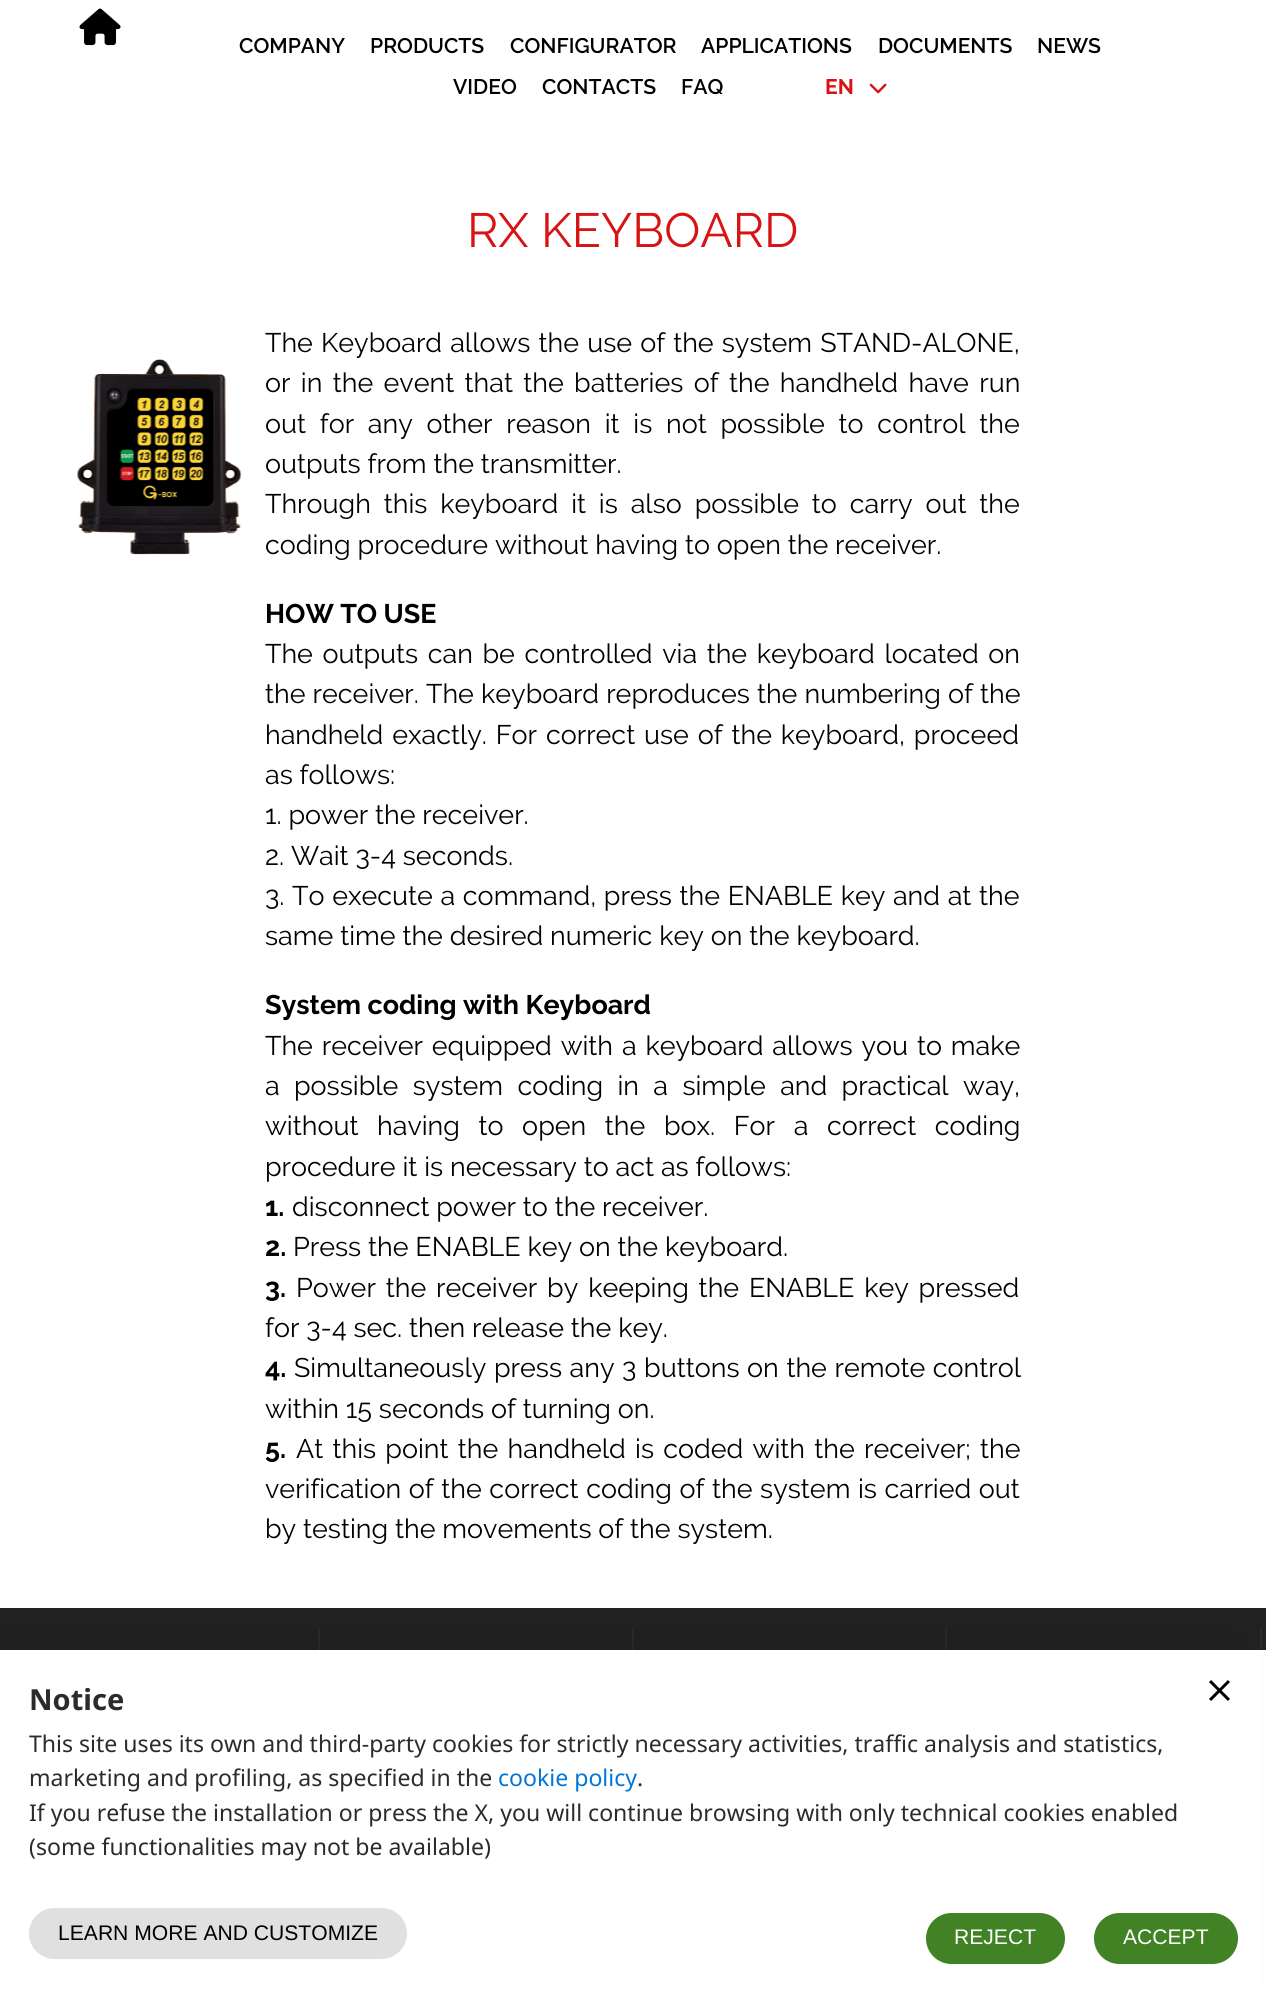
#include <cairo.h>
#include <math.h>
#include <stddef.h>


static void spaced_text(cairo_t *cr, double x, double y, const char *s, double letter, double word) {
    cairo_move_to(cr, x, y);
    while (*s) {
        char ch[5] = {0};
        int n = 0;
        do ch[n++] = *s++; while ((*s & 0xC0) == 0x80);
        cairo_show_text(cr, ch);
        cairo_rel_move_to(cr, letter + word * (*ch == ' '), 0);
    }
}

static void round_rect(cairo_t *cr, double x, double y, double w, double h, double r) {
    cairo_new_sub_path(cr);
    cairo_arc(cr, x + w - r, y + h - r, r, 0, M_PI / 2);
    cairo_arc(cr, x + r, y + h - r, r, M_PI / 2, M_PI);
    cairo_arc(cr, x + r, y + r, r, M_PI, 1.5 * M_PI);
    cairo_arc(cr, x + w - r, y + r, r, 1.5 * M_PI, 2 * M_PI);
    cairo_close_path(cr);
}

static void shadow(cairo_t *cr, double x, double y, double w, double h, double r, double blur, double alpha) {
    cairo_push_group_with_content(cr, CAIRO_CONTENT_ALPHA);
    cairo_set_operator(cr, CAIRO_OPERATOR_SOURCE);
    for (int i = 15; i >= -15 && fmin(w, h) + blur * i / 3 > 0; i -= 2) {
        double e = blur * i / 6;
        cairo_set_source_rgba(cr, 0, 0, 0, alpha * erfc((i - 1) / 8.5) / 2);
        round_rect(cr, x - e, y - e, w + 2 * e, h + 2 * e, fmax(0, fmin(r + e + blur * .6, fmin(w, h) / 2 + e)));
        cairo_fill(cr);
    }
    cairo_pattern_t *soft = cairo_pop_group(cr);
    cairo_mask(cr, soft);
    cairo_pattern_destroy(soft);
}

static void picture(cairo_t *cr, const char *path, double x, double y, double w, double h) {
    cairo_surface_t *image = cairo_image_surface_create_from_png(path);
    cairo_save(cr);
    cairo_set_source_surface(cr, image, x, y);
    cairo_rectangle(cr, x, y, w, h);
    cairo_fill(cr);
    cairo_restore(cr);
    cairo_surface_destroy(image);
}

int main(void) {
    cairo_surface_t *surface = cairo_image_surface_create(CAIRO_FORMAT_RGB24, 1266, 1991);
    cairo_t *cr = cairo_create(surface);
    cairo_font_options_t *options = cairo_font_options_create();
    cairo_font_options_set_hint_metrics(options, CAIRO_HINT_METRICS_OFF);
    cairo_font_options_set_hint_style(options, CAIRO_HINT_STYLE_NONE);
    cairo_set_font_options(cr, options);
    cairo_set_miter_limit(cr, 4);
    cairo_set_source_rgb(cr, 1, 1, 1);
    cairo_paint(cr);
    picture(cr, "img1.png", 79, 8, 42, 38);
    cairo_select_font_face(cr, "Raleway SemiBold", CAIRO_FONT_SLANT_NORMAL, CAIRO_FONT_WEIGHT_NORMAL);
    cairo_set_font_size(cr, 21.1);
    cairo_set_source_rgb(cr, 0, 0, 0);
    cairo_move_to(cr, 239, 53);
    cairo_show_text(cr, "COMPANY");
    cairo_move_to(cr, 370, 53);
    cairo_show_text(cr, "PRODUCTS");
    cairo_move_to(cr, 510, 53);
    cairo_show_text(cr, "CONFIGURATOR");
    cairo_move_to(cr, 701, 53);
    cairo_show_text(cr, "APPLICATIONS");
    cairo_move_to(cr, 878, 53);
    cairo_show_text(cr, "DOCUMENTS");
    cairo_move_to(cr, 1037, 53);
    cairo_show_text(cr, "NEWS");
    cairo_move_to(cr, 453, 94);
    cairo_show_text(cr, "VIDEO");
    cairo_move_to(cr, 542, 94);
    cairo_show_text(cr, "CONTACTS");
    cairo_move_to(cr, 681, 94);
    cairo_show_text(cr, "FAQ");
    cairo_select_font_face(cr, "Raleway", CAIRO_FONT_SLANT_NORMAL, CAIRO_FONT_WEIGHT_BOLD);
    cairo_set_source_rgb(cr, 0.843, 0.075, 0.082);
    cairo_move_to(cr, 825, 94);
    cairo_show_text(cr, "EN");
    picture(cr, "img2.png", 869, 83, 18, 11);
    cairo_select_font_face(cr, "Raleway", CAIRO_FONT_SLANT_NORMAL, CAIRO_FONT_WEIGHT_NORMAL);
    cairo_set_font_size(cr, 48);
    cairo_move_to(cr, 467, 247);
    cairo_show_text(cr, "RX KEYBOARD");
    picture(cr, "img3.png", 77, 359, 165, 196);
    cairo_set_font_size(cr, 26.9);
    cairo_set_source_rgb(cr, 0, 0, 0);
    spaced_text(cr, 265, 352, "The Keyboard allows the use of the system STAND-ALONE,", 0, 1.25);
    spaced_text(cr, 265, 392, "or in the event that the batteries of the handheld have run", 0, 3.5);
    spaced_text(cr, 265, 433, "out for any other reason it is not possible to control the", 0, 6.9);
    cairo_move_to(cr, 265, 473);
    cairo_show_text(cr, "outputs from the transmitter.");
    spaced_text(cr, 265, 513, "Through this keyboard it is also possible to carry out the", 0, 6);
    cairo_move_to(cr, 265, 554);
    cairo_show_text(cr, "coding procedure without having to open the receiver.");
    cairo_select_font_face(cr, "Raleway", CAIRO_FONT_SLANT_NORMAL, CAIRO_FONT_WEIGHT_BOLD);
    cairo_move_to(cr, 265, 623);
    cairo_show_text(cr, "HOW TO USE");
    cairo_select_font_face(cr, "Raleway", CAIRO_FONT_SLANT_NORMAL, CAIRO_FONT_WEIGHT_NORMAL);
    spaced_text(cr, 265, 663, "The outputs can be controlled via the keyboard located on", 0, 2.75);
    spaced_text(cr, 265, 703, "the receiver. The keyboard reproduces the numbering of the", 0, 0.25);
    spaced_text(cr, 265, 744, "handheld exactly. For correct use of the keyboard, proceed", 0, 2);
    cairo_move_to(cr, 265, 784);
    cairo_show_text(cr, "as follows:");
    cairo_move_to(cr, 265, 824);
    cairo_show_text(cr, "1. power the receiver.");
    cairo_move_to(cr, 265, 865);
    cairo_show_text(cr, "2. Wait 3-4 seconds.");
    spaced_text(cr, 265, 905, "3. To execute a command, press the ENABLE key and at the", 0, 0.8);
    cairo_move_to(cr, 265, 945);
    cairo_show_text(cr, "same time the desired numeric key on the keyboard.");
    cairo_select_font_face(cr, "Raleway", CAIRO_FONT_SLANT_NORMAL, CAIRO_FONT_WEIGHT_BOLD);
    cairo_move_to(cr, 265, 1014);
    cairo_show_text(cr, "System coding with Keyboard");
    cairo_select_font_face(cr, "Raleway", CAIRO_FONT_SLANT_NORMAL, CAIRO_FONT_WEIGHT_NORMAL);
    spaced_text(cr, 265, 1055, "The receiver equipped with a keyboard allows you to make", 0, 2);
    spaced_text(cr, 265, 1095, "a possible system coding in a simple and practical way,", 0, 7.5);
    spaced_text(cr, 265, 1135, "without having to open the box. For a correct coding", 0, 11.75);
    cairo_move_to(cr, 265, 1176);
    cairo_show_text(cr, "procedure it is necessary to act as follows:");
    cairo_select_font_face(cr, "Raleway", CAIRO_FONT_SLANT_NORMAL, CAIRO_FONT_WEIGHT_BOLD);
    cairo_move_to(cr, 265, 1216);
    cairo_show_text(cr, "1.");
    cairo_select_font_face(cr, "Raleway", CAIRO_FONT_SLANT_NORMAL, CAIRO_FONT_WEIGHT_NORMAL);
    cairo_move_to(cr, 292, 1216);
    cairo_show_text(cr, "disconnect power to the receiver.");
    cairo_select_font_face(cr, "Raleway", CAIRO_FONT_SLANT_NORMAL, CAIRO_FONT_WEIGHT_BOLD);
    cairo_move_to(cr, 265, 1256);
    cairo_show_text(cr, "2.");
    cairo_select_font_face(cr, "Raleway", CAIRO_FONT_SLANT_NORMAL, CAIRO_FONT_WEIGHT_NORMAL);
    cairo_move_to(cr, 293, 1256);
    cairo_show_text(cr, "Press the ENABLE key on the keyboard.");
    cairo_select_font_face(cr, "Raleway", CAIRO_FONT_SLANT_NORMAL, CAIRO_FONT_WEIGHT_BOLD);
    cairo_move_to(cr, 265, 1297);
    cairo_show_text(cr, "3.");
    cairo_select_font_face(cr, "Raleway", CAIRO_FONT_SLANT_NORMAL, CAIRO_FONT_WEIGHT_NORMAL);
    spaced_text(cr, 296, 1297, "Power the receiver by keeping the ENABLE key pressed", 0, 3);
    cairo_move_to(cr, 265, 1337);
    cairo_show_text(cr, "for 3-4 sec. then release the key.");
    cairo_select_font_face(cr, "Raleway", CAIRO_FONT_SLANT_NORMAL, CAIRO_FONT_WEIGHT_BOLD);
    cairo_move_to(cr, 265, 1377);
    cairo_show_text(cr, "4.");
    cairo_select_font_face(cr, "Raleway", CAIRO_FONT_SLANT_NORMAL, CAIRO_FONT_WEIGHT_NORMAL);
    spaced_text(cr, 294, 1377, "Simultaneously press any 3 buttons on the remote control", 0, 0.75);
    cairo_move_to(cr, 265, 1418);
    cairo_show_text(cr, "within 15 seconds of turning on.");
    cairo_select_font_face(cr, "Raleway", CAIRO_FONT_SLANT_NORMAL, CAIRO_FONT_WEIGHT_BOLD);
    cairo_move_to(cr, 265, 1458);
    cairo_show_text(cr, "5.");
    cairo_select_font_face(cr, "Raleway", CAIRO_FONT_SLANT_NORMAL, CAIRO_FONT_WEIGHT_NORMAL);
    spaced_text(cr, 296, 1458, "At this point the handheld is coded with the receiver; the", 0, 2.4);
    spaced_text(cr, 265, 1498, "verification of the correct coding of the system is carried out", 0, 0.75);
    cairo_move_to(cr, 265, 1538);
    cairo_show_text(cr, "by testing the movements of the system.");
    cairo_set_source_rgb(cr, 0.129, 0.129, 0.129);
    cairo_rectangle(cr, 0, 1608, 1266, 42);
    cairo_fill(cr);
    cairo_set_source_rgb(cr, 0.157, 0.165, 0.169);
    cairo_rectangle(cr, 318, 1628, 2, 22);
    cairo_fill(cr);
    cairo_rectangle(cr, 632, 1628, 2, 22);
    cairo_fill(cr);
    cairo_rectangle(cr, 945, 1628, 2, 22);
    cairo_fill(cr);
    cairo_rectangle(cr, 1260, 1628, 2, 22);
    cairo_fill(cr);
    cairo_set_source_rgb(cr, 0, 0, 0);
    shadow(cr, -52, 1653, 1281, 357, 0, 22.5, 0.12);
    cairo_set_source_rgb(cr, 1, 1, 1);
    cairo_rectangle(cr, 0, 1650, 1260, 341);
    cairo_fill(cr);
    cairo_select_font_face(cr, "Noto Sans", CAIRO_FONT_SLANT_NORMAL, CAIRO_FONT_WEIGHT_BOLD);
    cairo_set_font_size(cr, 29);
    cairo_set_source_rgb(cr, 0.161, 0.169, 0.173);
    cairo_move_to(cr, 29, 1710);
    cairo_show_text(cr, "Notice");
    picture(cr, "img4.png", 1209, 1680, 21, 21);
    cairo_select_font_face(cr, "Noto Sans", CAIRO_FONT_SLANT_NORMAL, CAIRO_FONT_WEIGHT_NORMAL);
    cairo_set_font_size(cr, 23.05);
    cairo_move_to(cr, 29, 1752);
    cairo_show_text(cr, "This site uses its own and third-party cookies for strictly necessary activities, traffic analysis and statistics,");
    cairo_move_to(cr, 29, 1786);
    cairo_show_text(cr, "marketing and profiling, as specified in the");
    cairo_set_source_rgb(cr, 0.008, 0.459, 0.847);
    cairo_move_to(cr, 498, 1786);
    cairo_show_text(cr, "cookie policy");
    cairo_set_source_rgb(cr, 0.161, 0.169, 0.173);
    cairo_move_to(cr, 637, 1786);
    cairo_show_text(cr, ".");
    cairo_move_to(cr, 29, 1821);
    cairo_show_text(cr, "If you refuse the installation or press the X, you will continue browsing with only technical cookies enabled");
    cairo_move_to(cr, 29, 1855);
    cairo_show_text(cr, "(some functionalities may not be available)");
    cairo_set_source_rgb(cr, 0.878, 0.878, 0.878);
    round_rect(cr, 29, 1908, 378, 51, 25.5);
    cairo_fill(cr);
    cairo_select_font_face(cr, "Liberation Sans", CAIRO_FONT_SLANT_NORMAL, CAIRO_FONT_WEIGHT_NORMAL);
    cairo_set_font_size(cr, 21.1);
    cairo_set_source_rgb(cr, 0, 0, 0);
    cairo_move_to(cr, 58, 1940);
    cairo_show_text(cr, "LEARN MORE AND CUSTOMIZE");
    cairo_set_source_rgb(cr, 0.251, 0.51, 0.141);
    round_rect(cr, 926, 1913, 139, 51, 25.5);
    cairo_fill(cr);
    cairo_set_source_rgb(cr, 1, 1, 1);
    cairo_move_to(cr, 954, 1944);
    cairo_show_text(cr, "REJECT");
    cairo_set_source_rgb(cr, 0.251, 0.51, 0.141);
    round_rect(cr, 1094, 1913, 144, 51, 25.5);
    cairo_fill(cr);
    cairo_set_source_rgb(cr, 1, 1, 1);
    cairo_move_to(cr, 1123, 1944);
    cairo_show_text(cr, "ACCEPT");
    cairo_surface_write_to_png(surface, "page.png");
    cairo_font_options_destroy(options);
    cairo_destroy(cr);
    cairo_surface_destroy(surface);
    return 0;
}
